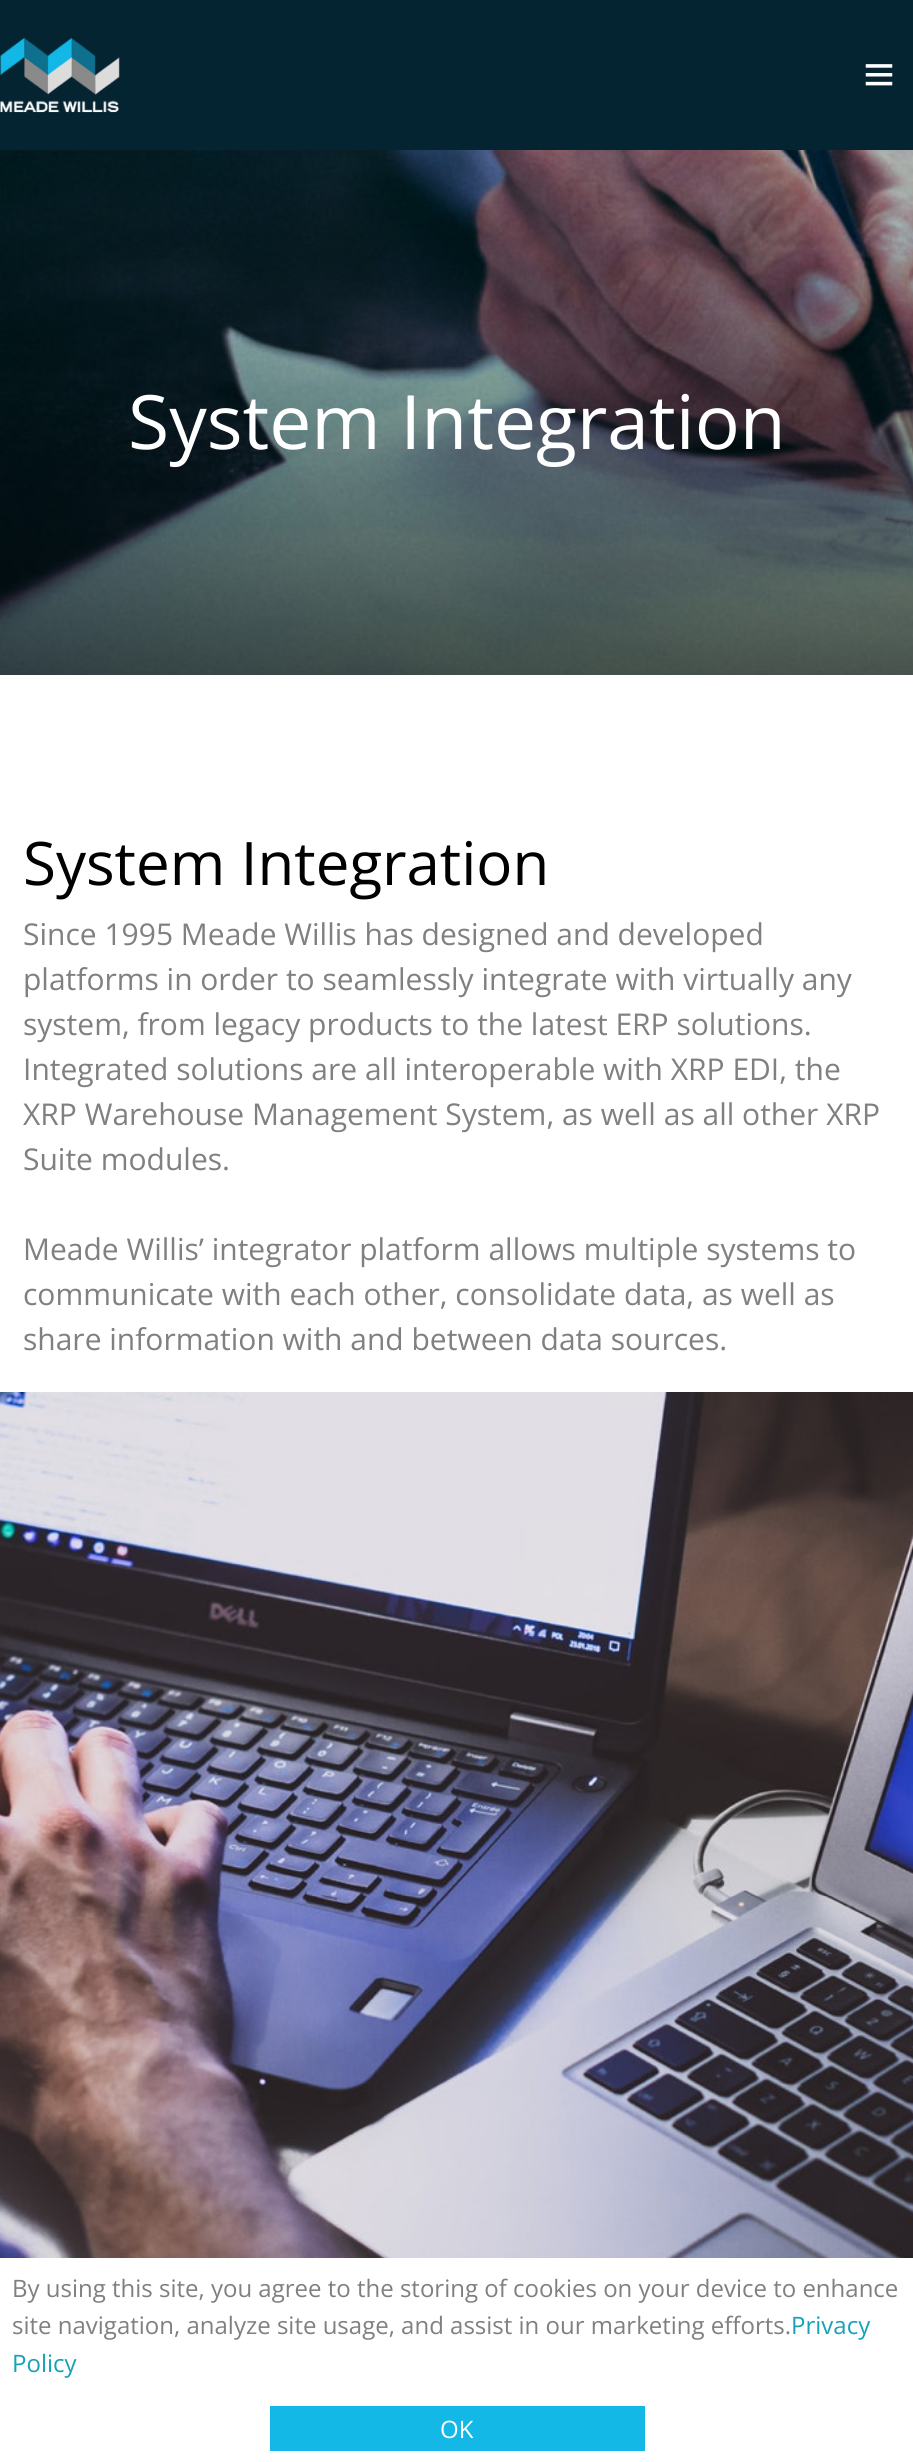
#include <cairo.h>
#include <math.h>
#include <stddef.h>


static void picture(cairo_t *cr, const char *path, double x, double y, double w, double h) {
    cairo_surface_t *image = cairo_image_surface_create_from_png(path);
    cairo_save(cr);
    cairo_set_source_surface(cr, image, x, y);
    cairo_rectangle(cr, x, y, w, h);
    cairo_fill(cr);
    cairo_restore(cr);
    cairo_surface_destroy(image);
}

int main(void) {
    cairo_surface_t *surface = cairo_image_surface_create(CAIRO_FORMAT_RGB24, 913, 2462);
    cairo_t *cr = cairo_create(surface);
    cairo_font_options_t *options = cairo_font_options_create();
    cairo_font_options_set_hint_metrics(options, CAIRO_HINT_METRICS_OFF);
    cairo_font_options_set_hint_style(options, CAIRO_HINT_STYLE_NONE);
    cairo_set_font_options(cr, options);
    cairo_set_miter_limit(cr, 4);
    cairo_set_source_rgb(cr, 1, 1, 1);
    cairo_paint(cr);
    cairo_set_source_rgb(cr, 0.02, 0.141, 0.196);
    cairo_rectangle(cr, 0, 0, 913, 150);
    cairo_fill(cr);
    picture(cr, "img1.png", 0, 37, 120, 76);
    picture(cr, "img2.png", 865, 64, 28, 22);
    picture(cr, "img3.png", 0, 150, 913, 525);
    cairo_select_font_face(cr, "Open Sans", CAIRO_FONT_SLANT_NORMAL, CAIRO_FONT_WEIGHT_NORMAL);
    cairo_set_font_size(cr, 75);
    cairo_set_source_rgb(cr, 1, 1, 1);
    cairo_move_to(cr, 128, 449);
    cairo_show_text(cr, "System Integration");
    cairo_set_font_size(cr, 60);
    cairo_set_source_rgb(cr, 0, 0, 0);
    cairo_move_to(cr, 23, 885);
    cairo_show_text(cr, "System Integration");
    cairo_set_font_size(cr, 30);
    cairo_set_source_rgb(cr, 0.502, 0.502, 0.502);
    cairo_move_to(cr, 23, 945);
    cairo_show_text(cr, "Since 1995 Meade Willis has designed and developed");
    cairo_move_to(cr, 23, 990);
    cairo_show_text(cr, "platforms in order to seamlessly integrate with virtually any");
    cairo_move_to(cr, 23, 1035);
    cairo_show_text(cr, "system, from legacy products to the latest ERP solutions.");
    cairo_move_to(cr, 23, 1080);
    cairo_show_text(cr, "Integrated solutions are all interoperable with XRP EDI, the");
    cairo_move_to(cr, 23, 1125);
    cairo_show_text(cr, "XRP Warehouse Management System, as well as all other XRP");
    cairo_move_to(cr, 23, 1170);
    cairo_show_text(cr, "Suite modules.");
    cairo_move_to(cr, 23, 1260);
    cairo_show_text(cr, "Meade Willis’ integrator platform allows multiple systems to");
    cairo_move_to(cr, 23, 1305);
    cairo_show_text(cr, "communicate with each other, consolidate data, as well as");
    cairo_move_to(cr, 23, 1350);
    cairo_show_text(cr, "share information with and between data sources.");
    picture(cr, "img4.png", 0, 1392, 913, 866);
    cairo_set_font_size(cr, 24);
    cairo_move_to(cr, 12, 2297);
    cairo_show_text(cr, "By using this site, you agree to the storing of cookies on your device to enhance");
    cairo_move_to(cr, 12, 2334);
    cairo_show_text(cr, "site navigation, analyze site usage, and assist in our marketing efforts.");
    cairo_set_source_rgb(cr, 0.09, 0.635, 0.722);
    cairo_move_to(cr, 791, 2334);
    cairo_show_text(cr, "Privacy");
    cairo_move_to(cr, 12, 2372);
    cairo_show_text(cr, "Policy");
    cairo_set_source_rgb(cr, 0.075, 0.722, 0.902);
    cairo_rectangle(cr, 270, 2406, 375, 45);
    cairo_fill(cr);
    cairo_set_source_rgb(cr, 1, 1, 1);
    cairo_move_to(cr, 440, 2438);
    cairo_show_text(cr, "OK");
    cairo_surface_write_to_png(surface, "page.png");
    cairo_font_options_destroy(options);
    cairo_destroy(cr);
    cairo_surface_destroy(surface);
    return 0;
}
